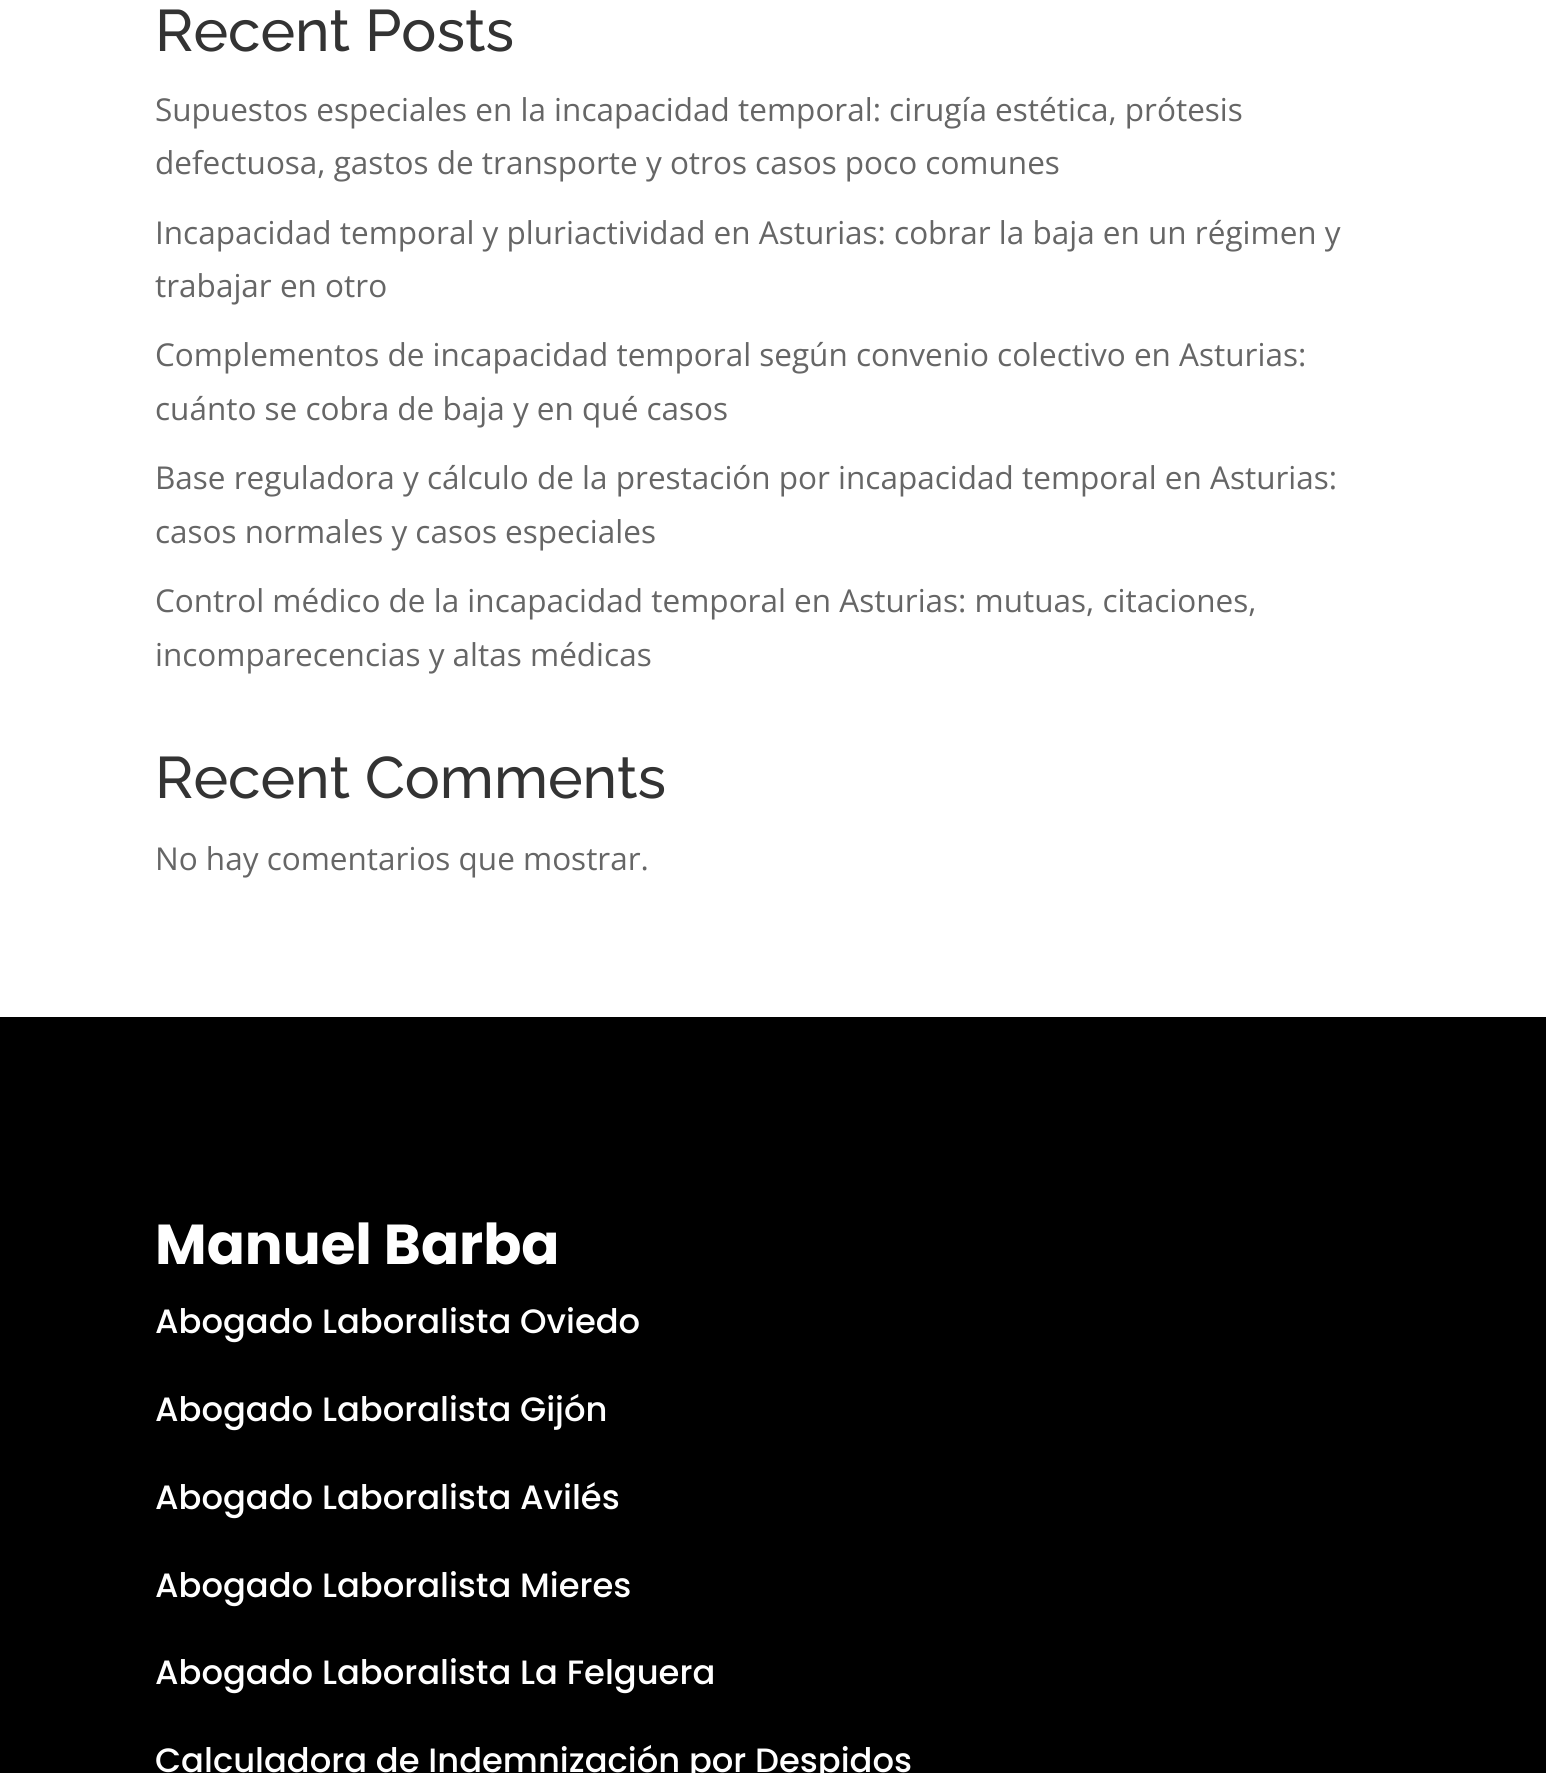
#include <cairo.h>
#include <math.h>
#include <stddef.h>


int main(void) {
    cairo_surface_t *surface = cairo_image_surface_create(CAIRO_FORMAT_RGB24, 1546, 1773);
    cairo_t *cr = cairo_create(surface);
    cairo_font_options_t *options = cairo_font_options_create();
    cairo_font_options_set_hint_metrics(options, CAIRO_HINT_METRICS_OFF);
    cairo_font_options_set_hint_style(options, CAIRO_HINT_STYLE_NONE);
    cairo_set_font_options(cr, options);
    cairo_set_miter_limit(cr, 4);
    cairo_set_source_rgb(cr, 1, 1, 1);
    cairo_paint(cr);
    cairo_select_font_face(cr, "Raleway Medium", CAIRO_FONT_SLANT_NORMAL, CAIRO_FONT_WEIGHT_NORMAL);
    cairo_set_font_size(cr, 58.5);
    cairo_set_source_rgb(cr, 0.2, 0.2, 0.2);
    cairo_move_to(cr, 155, 51);
    cairo_show_text(cr, "Recent Posts");
    cairo_select_font_face(cr, "Open Sans", CAIRO_FONT_SLANT_NORMAL, CAIRO_FONT_WEIGHT_NORMAL);
    cairo_set_font_size(cr, 31.5);
    cairo_set_source_rgb(cr, 0.4, 0.4, 0.4);
    cairo_move_to(cr, 155, 121);
    cairo_show_text(cr, "Supuestos especiales en la incapacidad temporal: cirugía estética, prótesis");
    cairo_move_to(cr, 155, 174);
    cairo_show_text(cr, "defectuosa, gastos de transporte y otros casos poco comunes");
    cairo_move_to(cr, 155, 244);
    cairo_show_text(cr, "Incapacidad temporal y pluriactividad en Asturias: cobrar la baja en un régimen y");
    cairo_move_to(cr, 155, 297);
    cairo_show_text(cr, "trabajar en otro");
    cairo_move_to(cr, 155, 366);
    cairo_show_text(cr, "Complementos de incapacidad temporal según convenio colectivo en Asturias:");
    cairo_move_to(cr, 155, 420);
    cairo_show_text(cr, "cuánto se cobra de baja y en qué casos");
    cairo_move_to(cr, 155, 489);
    cairo_show_text(cr, "Base reguladora y cálculo de la prestación por incapacidad temporal en Asturias:");
    cairo_move_to(cr, 155, 543);
    cairo_show_text(cr, "casos normales y casos especiales");
    cairo_move_to(cr, 155, 612);
    cairo_show_text(cr, "Control médico de la incapacidad temporal en Asturias: mutuas, citaciones,");
    cairo_move_to(cr, 155, 666);
    cairo_show_text(cr, "incomparecencias y altas médicas");
    cairo_select_font_face(cr, "Raleway Medium", CAIRO_FONT_SLANT_NORMAL, CAIRO_FONT_WEIGHT_NORMAL);
    cairo_set_font_size(cr, 58.5);
    cairo_set_source_rgb(cr, 0.2, 0.2, 0.2);
    cairo_move_to(cr, 155, 798);
    cairo_show_text(cr, "Recent Comments");
    cairo_select_font_face(cr, "Open Sans", CAIRO_FONT_SLANT_NORMAL, CAIRO_FONT_WEIGHT_NORMAL);
    cairo_set_font_size(cr, 31.5);
    cairo_set_source_rgb(cr, 0.4, 0.4, 0.4);
    cairo_move_to(cr, 155, 870);
    cairo_show_text(cr, "No hay comentarios que mostrar.");
    cairo_set_source_rgb(cr, 0, 0, 0);
    cairo_rectangle(cr, 0, 1017, 1546, 756);
    cairo_fill(cr);
    cairo_select_font_face(cr, "Poppins", CAIRO_FONT_SLANT_NORMAL, CAIRO_FONT_WEIGHT_BOLD);
    cairo_set_font_size(cr, 56.25);
    cairo_set_source_rgb(cr, 1, 1, 1);
    cairo_move_to(cr, 155, 1264);
    cairo_show_text(cr, "Manuel Barba");
    cairo_select_font_face(cr, "Poppins Medium", CAIRO_FONT_SLANT_NORMAL, CAIRO_FONT_WEIGHT_NORMAL);
    cairo_set_font_size(cr, 33.75);
    cairo_move_to(cr, 155, 1333);
    cairo_show_text(cr, "Abogado Laboralista Oviedo");
    cairo_move_to(cr, 155, 1421);
    cairo_show_text(cr, "Abogado Laboralista Gijón");
    cairo_move_to(cr, 155, 1509);
    cairo_show_text(cr, "Abogado Laboralista Avilés");
    cairo_move_to(cr, 155, 1597);
    cairo_show_text(cr, "Abogado Laboralista Mieres");
    cairo_move_to(cr, 155, 1684);
    cairo_show_text(cr, "Abogado Laboralista La Felguera");
    cairo_move_to(cr, 155, 1772);
    cairo_show_text(cr, "Calculadora de Indemnización por Despidos");
    cairo_surface_write_to_png(surface, "page.png");
    cairo_font_options_destroy(options);
    cairo_destroy(cr);
    cairo_surface_destroy(surface);
    return 0;
}
